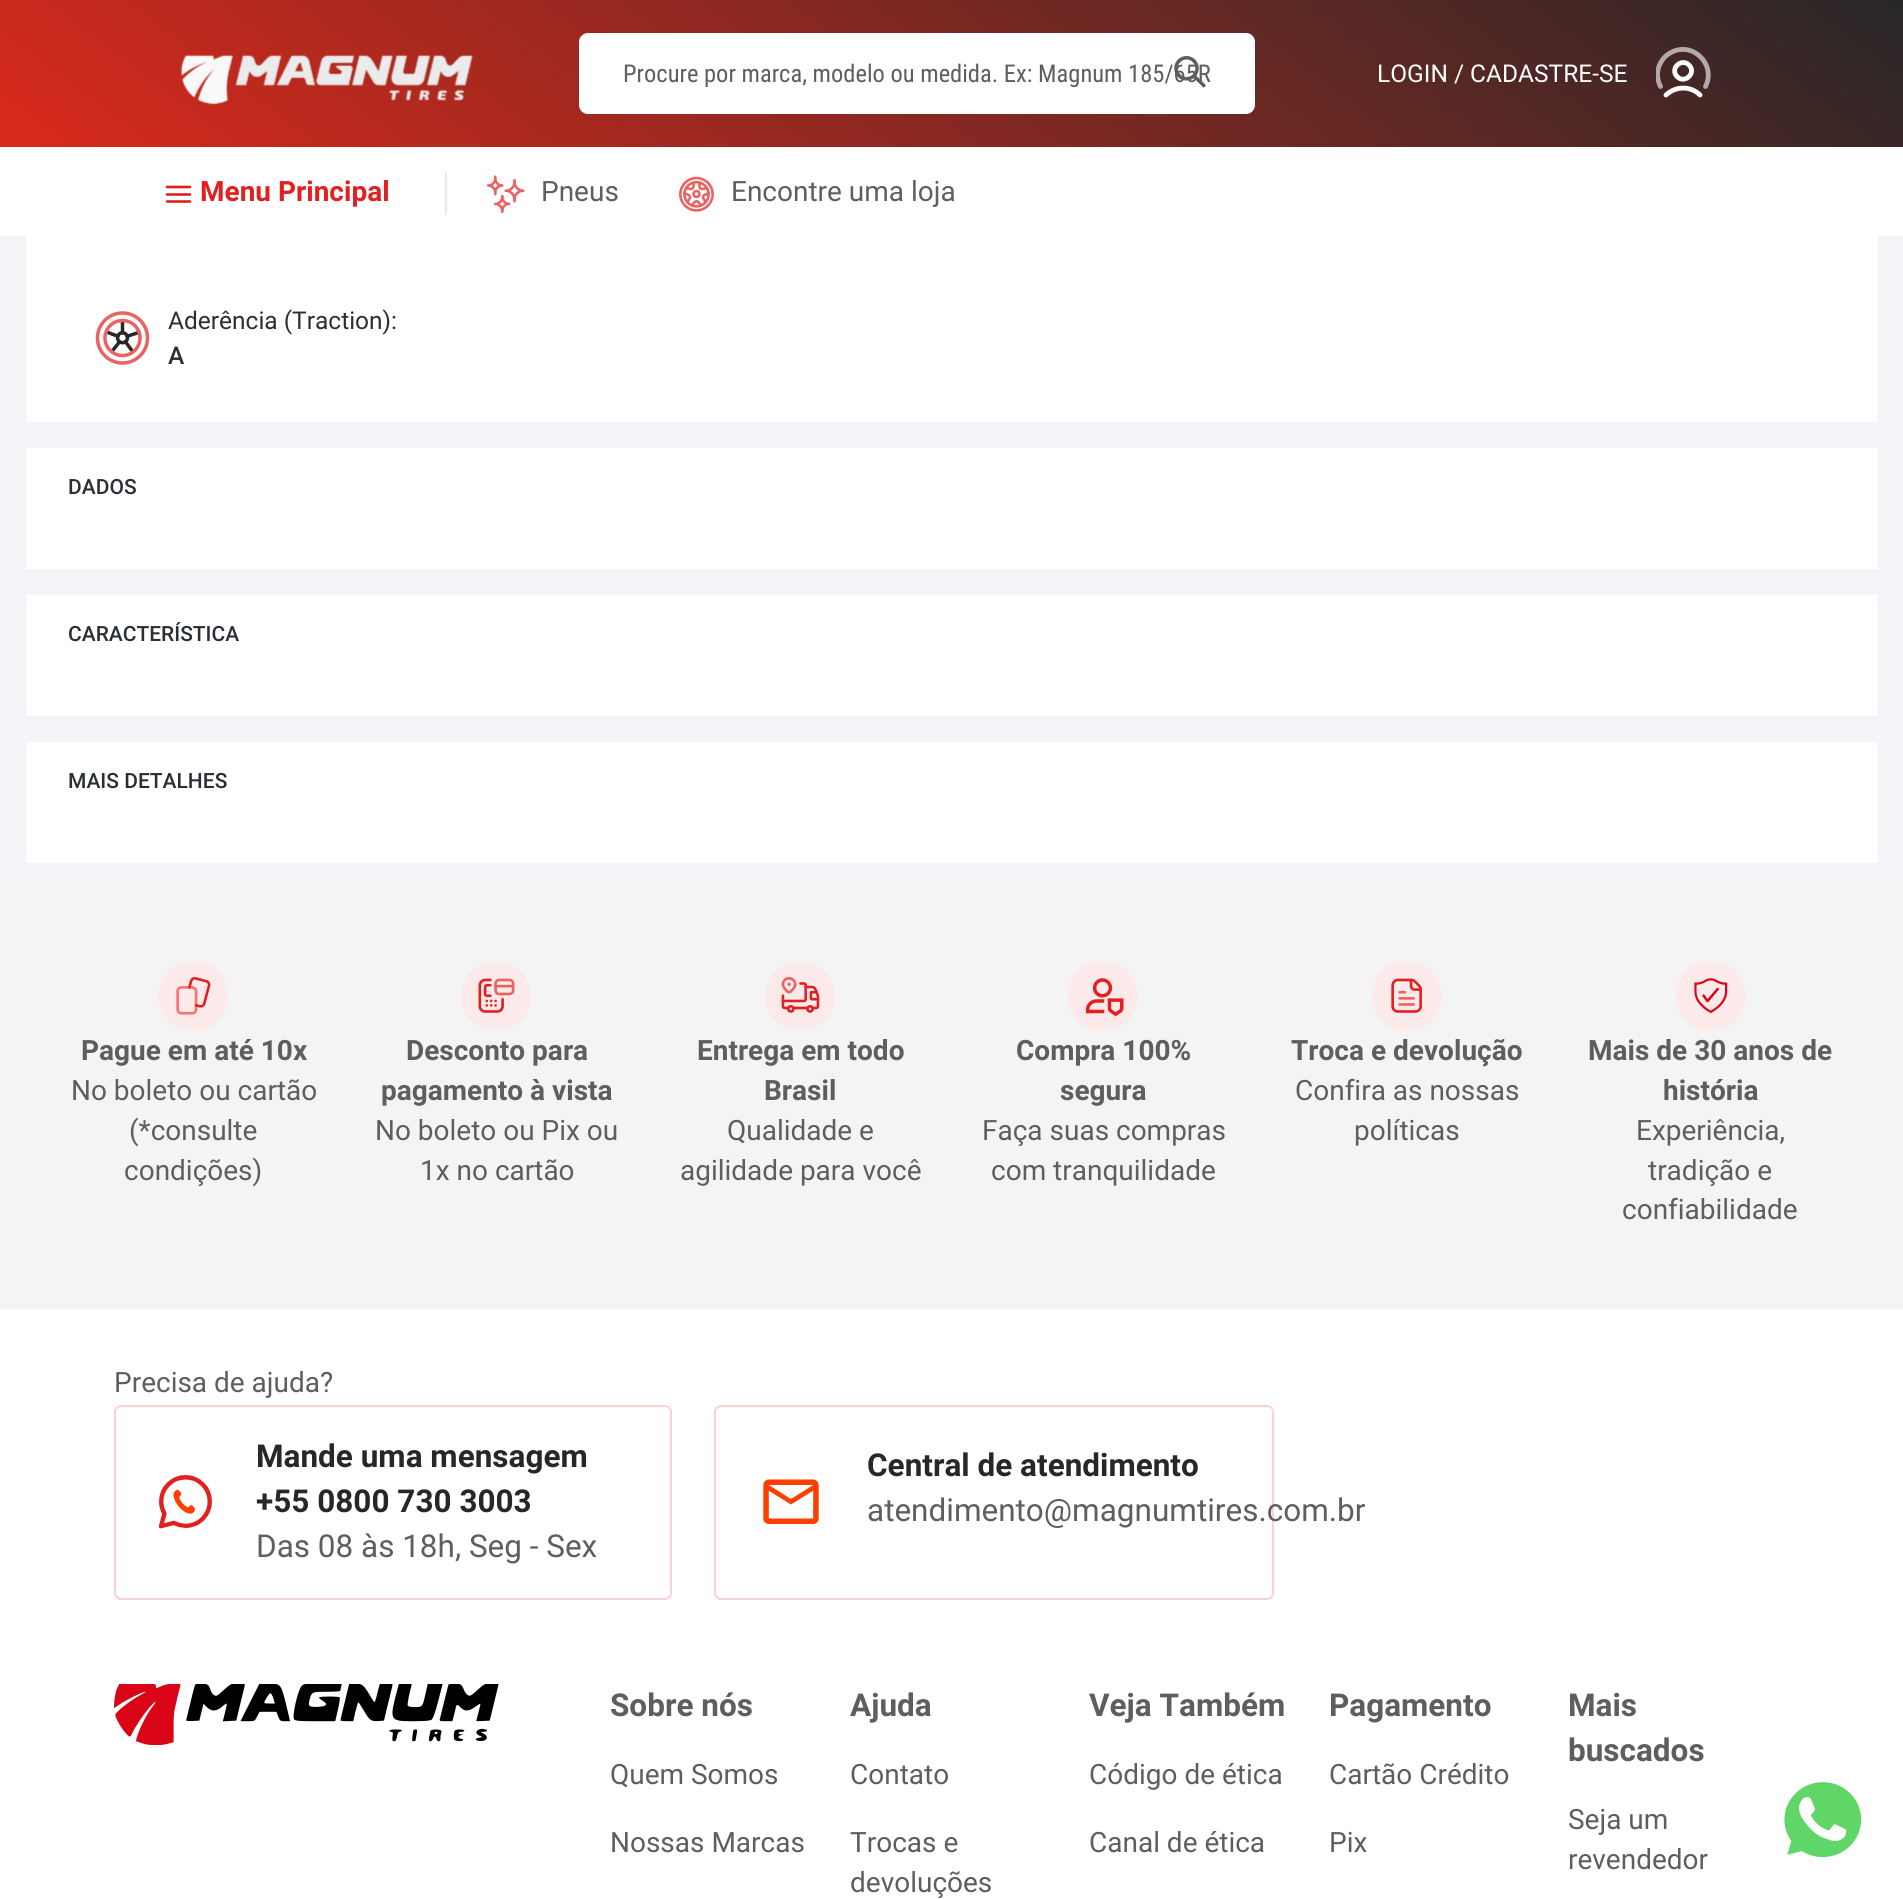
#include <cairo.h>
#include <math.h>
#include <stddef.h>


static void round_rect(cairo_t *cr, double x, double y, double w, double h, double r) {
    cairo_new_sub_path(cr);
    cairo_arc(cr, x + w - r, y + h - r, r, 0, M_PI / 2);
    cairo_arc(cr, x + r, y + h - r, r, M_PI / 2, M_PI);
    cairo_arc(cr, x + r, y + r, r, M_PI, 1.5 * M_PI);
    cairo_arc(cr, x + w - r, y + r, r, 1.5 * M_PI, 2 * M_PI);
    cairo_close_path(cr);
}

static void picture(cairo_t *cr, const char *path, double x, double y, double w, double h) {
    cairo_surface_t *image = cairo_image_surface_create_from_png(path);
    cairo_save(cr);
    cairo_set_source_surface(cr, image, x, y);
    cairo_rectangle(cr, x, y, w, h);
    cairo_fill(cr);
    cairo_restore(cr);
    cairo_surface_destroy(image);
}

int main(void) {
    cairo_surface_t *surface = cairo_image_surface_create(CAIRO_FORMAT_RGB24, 1903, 1899);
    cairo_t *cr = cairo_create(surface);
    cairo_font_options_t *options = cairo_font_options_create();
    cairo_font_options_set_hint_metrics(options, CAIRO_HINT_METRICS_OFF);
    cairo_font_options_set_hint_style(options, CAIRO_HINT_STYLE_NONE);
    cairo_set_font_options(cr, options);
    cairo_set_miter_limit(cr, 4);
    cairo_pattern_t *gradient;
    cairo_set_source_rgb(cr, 0.957, 0.957, 0.969);
    cairo_paint(cr);
    cairo_set_source_rgb(cr, 1, 1, 1);
    cairo_rectangle(cr, 0, 147, 1903, 89);
    cairo_fill(cr);
    gradient = cairo_pattern_create_linear(572, 578, 1332, -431);
    cairo_pattern_add_color_stop_rgba(gradient, 0, 0.855, 0.161, 0.11, 1);
    cairo_pattern_add_color_stop_rgba(gradient, 1, 0.153, 0.153, 0.153, 1);
    cairo_set_source(cr, gradient);
    cairo_pattern_destroy(gradient);
    cairo_rectangle(cr, 0, 0, 1903, 147);
    cairo_fill(cr);
    picture(cr, "img1.png", 180, 54, 293, 51);
    cairo_set_source_rgb(cr, 1, 1, 1);
    round_rect(cr, 580, 34, 674, 79, 8);
    cairo_fill_preserve(cr);
    cairo_stroke(cr);
    cairo_select_font_face(cr, "Roboto Condensed", CAIRO_FONT_SLANT_NORMAL, CAIRO_FONT_WEIGHT_NORMAL);
    cairo_set_font_size(cr, 24.5);
    cairo_set_source_rgb(cr, 0.369, 0.369, 0.369);
    cairo_move_to(cr, 623, 82);
    cairo_show_text(cr, "Procure por marca, modelo ou medida. Ex: Magnum 185/65R");
    picture(cr, "img2.png", 1174, 56, 32, 32);
    cairo_select_font_face(cr, "Roboto", CAIRO_FONT_SLANT_NORMAL, CAIRO_FONT_WEIGHT_NORMAL);
    cairo_set_source_rgb(cr, 1, 1, 1);
    cairo_move_to(cr, 1377, 82);
    cairo_show_text(cr, "LOGIN / CADASTRE-SE");
    cairo_new_path(cr);
    cairo_move_to(cr, 1666, 95);
    cairo_curve_to(cr, 1675.5, 86, 1690.5, 85.5, 1700, 95);
    cairo_move_to(cr, 1689, 65);
    cairo_curve_to(cr, 1697, 73, 1684.5, 84.5, 1677, 76.5);
    cairo_curve_to(cr, 1669.5, 68.5, 1681.5, 57.5, 1689, 65);
    cairo_set_line_width(cr, 4.8);
    cairo_set_line_cap(cr, CAIRO_LINE_CAP_ROUND);
    cairo_set_line_join(cr, CAIRO_LINE_JOIN_ROUND);
    cairo_stroke(cr);
    cairo_save(cr);
    cairo_rectangle(cr, 1656, 47, 56, 51);
    cairo_clip(cr);
    cairo_new_path(cr);
    cairo_move_to(cr, 1660.5, 86.5);
    cairo_curve_to(cr, 1657, 79.5, 1656.5, 72, 1659.5, 65);
    cairo_curve_to(cr, 1661.5, 60.5, 1664.5, 56.5, 1668.5, 54);
    cairo_curve_to(cr, 1690.5, 39, 1717, 63.5, 1705.5, 86.5);
    cairo_set_source_rgba(cr, 1, 1, 1, 0.6);
    cairo_stroke(cr);
    cairo_restore(cr);
    cairo_set_source_rgb(cr, 0.914, 0.914, 0.929);
    cairo_rectangle(cr, 445, 173, 2, 42);
    cairo_fill(cr);
    cairo_new_path(cr);
    cairo_move_to(cr, 167, 194.5);
    cairo_line_to(cr, 190, 194.5);
    cairo_move_to(cr, 167, 201.5);
    cairo_line_to(cr, 190, 201.5);
    cairo_move_to(cr, 167, 187);
    cairo_line_to(cr, 190, 187);
    cairo_set_source_rgb(cr, 0.882, 0.125, 0.125);
    cairo_set_line_width(cr, 2.6);
    cairo_stroke(cr);
    cairo_select_font_face(cr, "Roboto", CAIRO_FONT_SLANT_NORMAL, CAIRO_FONT_WEIGHT_BOLD);
    cairo_set_font_size(cr, 28);
    cairo_move_to(cr, 200, 201);
    cairo_show_text(cr, "Menu Principal");
    picture(cr, "img3.png", 487, 175, 38, 38);
    cairo_select_font_face(cr, "Roboto", CAIRO_FONT_SLANT_NORMAL, CAIRO_FONT_WEIGHT_NORMAL);
    cairo_set_source_rgb(cr, 0.369, 0.369, 0.369);
    cairo_move_to(cr, 541, 201);
    cairo_show_text(cr, "Pneus");
    picture(cr, "img4.png", 679, 176, 35, 36);
    cairo_move_to(cr, 731, 201);
    cairo_show_text(cr, "Encontre uma loja");
    cairo_set_source_rgb(cr, 1, 1, 1);
    cairo_rectangle(cr, 0, 1309, 1903, 590);
    cairo_fill(cr);
    picture(cr, "img5.png", 1784, 1782, 78, 76);
    cairo_rectangle(cr, 26, 236, 1852, 186);
    cairo_fill(cr);
    picture(cr, "img6.png", 95, 311, 55, 54);
    cairo_set_font_size(cr, 24.5);
    cairo_set_source_rgb(cr, 0.165, 0.18, 0.208);
    cairo_move_to(cr, 168, 329);
    cairo_show_text(cr, "Aderência (Traction):");
    cairo_select_font_face(cr, "Roboto Medium", CAIRO_FONT_SLANT_NORMAL, CAIRO_FONT_WEIGHT_NORMAL);
    cairo_move_to(cr, 168, 364);
    cairo_show_text(cr, "A");
    cairo_set_source_rgb(cr, 1, 1, 1);
    cairo_rectangle(cr, 26, 448, 1852, 121);
    cairo_fill(cr);
    cairo_set_font_size(cr, 21);
    cairo_set_source_rgb(cr, 0.165, 0.18, 0.208);
    cairo_move_to(cr, 68, 494);
    cairo_show_text(cr, "DADOS");
    cairo_set_source_rgb(cr, 1, 1, 1);
    cairo_rectangle(cr, 26, 595, 1852, 121);
    cairo_fill(cr);
    cairo_set_source_rgb(cr, 0.165, 0.18, 0.208);
    cairo_move_to(cr, 68, 641);
    cairo_show_text(cr, "CARACTERÍSTICA");
    cairo_set_source_rgb(cr, 1, 1, 1);
    cairo_rectangle(cr, 26, 742, 1852, 121);
    cairo_fill(cr);
    cairo_set_source_rgb(cr, 0.165, 0.18, 0.208);
    cairo_move_to(cr, 68, 788);
    cairo_show_text(cr, "MAIS DETALHES");
    cairo_set_source_rgb(cr, 0.957, 0.957, 0.957);
    cairo_rectangle(cr, 0, 884, 1903, 425);
    cairo_fill(cr);
    picture(cr, "img7.png", 158, 961, 70, 70);
    cairo_select_font_face(cr, "Roboto", CAIRO_FONT_SLANT_NORMAL, CAIRO_FONT_WEIGHT_BOLD);
    cairo_set_font_size(cr, 28);
    cairo_set_source_rgb(cr, 0.369, 0.369, 0.369);
    cairo_move_to(cr, 81, 1060);
    cairo_show_text(cr, "Pague em até 10x");
    cairo_select_font_face(cr, "Roboto", CAIRO_FONT_SLANT_NORMAL, CAIRO_FONT_WEIGHT_NORMAL);
    cairo_move_to(cr, 71, 1100);
    cairo_show_text(cr, "No boleto ou cartão");
    cairo_move_to(cr, 129, 1140);
    cairo_show_text(cr, "(*consulte");
    cairo_move_to(cr, 124, 1180);
    cairo_show_text(cr, "condições)");
    picture(cr, "img8.png", 461, 961, 70, 70);
    cairo_select_font_face(cr, "Roboto", CAIRO_FONT_SLANT_NORMAL, CAIRO_FONT_WEIGHT_BOLD);
    cairo_move_to(cr, 406, 1060);
    cairo_show_text(cr, "Desconto para");
    cairo_move_to(cr, 381, 1100);
    cairo_show_text(cr, "pagamento à vista");
    cairo_select_font_face(cr, "Roboto", CAIRO_FONT_SLANT_NORMAL, CAIRO_FONT_WEIGHT_NORMAL);
    cairo_move_to(cr, 375, 1140);
    cairo_show_text(cr, "No boleto ou Pix ou");
    cairo_move_to(cr, 420, 1180);
    cairo_show_text(cr, "1x no cartão");
    picture(cr, "img9.png", 765, 961, 70, 70);
    cairo_select_font_face(cr, "Roboto", CAIRO_FONT_SLANT_NORMAL, CAIRO_FONT_WEIGHT_BOLD);
    cairo_move_to(cr, 697, 1060);
    cairo_show_text(cr, "Entrega em todo");
    cairo_move_to(cr, 764, 1100);
    cairo_show_text(cr, "Brasil");
    cairo_select_font_face(cr, "Roboto", CAIRO_FONT_SLANT_NORMAL, CAIRO_FONT_WEIGHT_NORMAL);
    cairo_move_to(cr, 727, 1140);
    cairo_show_text(cr, "Qualidade e");
    cairo_move_to(cr, 680, 1180);
    cairo_show_text(cr, "agilidade para você");
    picture(cr, "img10.png", 1068, 961, 70, 70);
    cairo_select_font_face(cr, "Roboto", CAIRO_FONT_SLANT_NORMAL, CAIRO_FONT_WEIGHT_BOLD);
    cairo_move_to(cr, 1016, 1060);
    cairo_show_text(cr, "Compra 100%");
    cairo_move_to(cr, 1060, 1100);
    cairo_show_text(cr, "segura");
    cairo_select_font_face(cr, "Roboto", CAIRO_FONT_SLANT_NORMAL, CAIRO_FONT_WEIGHT_NORMAL);
    cairo_move_to(cr, 982, 1140);
    cairo_show_text(cr, "Faça suas compras");
    cairo_move_to(cr, 991, 1180);
    cairo_show_text(cr, "com tranquilidade");
    picture(cr, "img11.png", 1372, 961, 70, 70);
    cairo_select_font_face(cr, "Roboto", CAIRO_FONT_SLANT_NORMAL, CAIRO_FONT_WEIGHT_BOLD);
    cairo_move_to(cr, 1291, 1060);
    cairo_show_text(cr, "Troca e devolução");
    cairo_select_font_face(cr, "Roboto", CAIRO_FONT_SLANT_NORMAL, CAIRO_FONT_WEIGHT_NORMAL);
    cairo_move_to(cr, 1295, 1100);
    cairo_show_text(cr, "Confira as nossas");
    cairo_move_to(cr, 1354, 1140);
    cairo_show_text(cr, "políticas");
    picture(cr, "img12.png", 1676, 961, 70, 70);
    cairo_select_font_face(cr, "Roboto", CAIRO_FONT_SLANT_NORMAL, CAIRO_FONT_WEIGHT_BOLD);
    cairo_move_to(cr, 1588, 1060);
    cairo_show_text(cr, "Mais de 30 anos de");
    cairo_move_to(cr, 1663, 1100);
    cairo_show_text(cr, "história");
    cairo_select_font_face(cr, "Roboto", CAIRO_FONT_SLANT_NORMAL, CAIRO_FONT_WEIGHT_NORMAL);
    cairo_move_to(cr, 1636, 1140);
    cairo_show_text(cr, "Experiência,");
    cairo_move_to(cr, 1648, 1180);
    cairo_show_text(cr, "tradição e");
    cairo_move_to(cr, 1622, 1219);
    cairo_show_text(cr, "confiabilidade");
    cairo_move_to(cr, 114, 1392);
    cairo_show_text(cr, "Precisa de ajuda?");
    round_rect(cr, 115, 1406, 556, 193, 6);
    cairo_set_source_rgb(cr, 0.976, 0.824, 0.824);
    cairo_set_line_width(cr, 2);
    cairo_set_line_cap(cr, CAIRO_LINE_CAP_BUTT);
    cairo_set_line_join(cr, CAIRO_LINE_JOIN_MITER);
    cairo_stroke(cr);
    picture(cr, "img13.png", 158, 1475, 54, 54);
    cairo_select_font_face(cr, "Roboto", CAIRO_FONT_SLANT_NORMAL, CAIRO_FONT_WEIGHT_BOLD);
    cairo_set_font_size(cr, 31.5);
    cairo_set_source_rgb(cr, 0.153, 0.153, 0.153);
    cairo_move_to(cr, 256, 1467);
    cairo_show_text(cr, "Mande uma mensagem");
    cairo_move_to(cr, 256, 1512);
    cairo_show_text(cr, "+55 0800 730 3003");
    cairo_select_font_face(cr, "Roboto", CAIRO_FONT_SLANT_NORMAL, CAIRO_FONT_WEIGHT_NORMAL);
    cairo_set_source_rgb(cr, 0.369, 0.369, 0.369);
    cairo_move_to(cr, 256, 1557);
    cairo_show_text(cr, "Das 08 às 18h, Seg - Sex");
    round_rect(cr, 715, 1406, 558, 193, 6);
    cairo_set_source_rgb(cr, 0.976, 0.824, 0.824);
    cairo_stroke(cr);
    picture(cr, "img14.png", 763, 1479, 56, 45);
    cairo_select_font_face(cr, "Roboto", CAIRO_FONT_SLANT_NORMAL, CAIRO_FONT_WEIGHT_BOLD);
    cairo_set_source_rgb(cr, 0.153, 0.153, 0.153);
    cairo_move_to(cr, 867, 1476);
    cairo_show_text(cr, "Central de atendimento");
    cairo_select_font_face(cr, "Roboto", CAIRO_FONT_SLANT_NORMAL, CAIRO_FONT_WEIGHT_NORMAL);
    cairo_set_source_rgb(cr, 0.369, 0.369, 0.369);
    cairo_move_to(cr, 867, 1521);
    cairo_show_text(cr, "atendimento@magnumtires.com.br");
    picture(cr, "img15.png", 114, 1684, 385, 61);
    cairo_select_font_face(cr, "Roboto", CAIRO_FONT_SLANT_NORMAL, CAIRO_FONT_WEIGHT_BOLD);
    cairo_move_to(cr, 610, 1716);
    cairo_show_text(cr, "Sobre nós");
    cairo_select_font_face(cr, "Roboto", CAIRO_FONT_SLANT_NORMAL, CAIRO_FONT_WEIGHT_NORMAL);
    cairo_set_font_size(cr, 28);
    cairo_move_to(cr, 610, 1784);
    cairo_show_text(cr, "Quem Somos");
    cairo_move_to(cr, 610, 1852);
    cairo_show_text(cr, "Nossas Marcas");
    cairo_select_font_face(cr, "Roboto", CAIRO_FONT_SLANT_NORMAL, CAIRO_FONT_WEIGHT_BOLD);
    cairo_set_font_size(cr, 31.5);
    cairo_move_to(cr, 850, 1716);
    cairo_show_text(cr, "Ajuda");
    cairo_select_font_face(cr, "Roboto", CAIRO_FONT_SLANT_NORMAL, CAIRO_FONT_WEIGHT_NORMAL);
    cairo_set_font_size(cr, 28);
    cairo_move_to(cr, 850, 1784);
    cairo_show_text(cr, "Contato");
    cairo_move_to(cr, 850, 1852);
    cairo_show_text(cr, "Trocas e");
    cairo_move_to(cr, 850, 1892);
    cairo_show_text(cr, "devoluções");
    cairo_select_font_face(cr, "Roboto", CAIRO_FONT_SLANT_NORMAL, CAIRO_FONT_WEIGHT_BOLD);
    cairo_set_font_size(cr, 31.5);
    cairo_move_to(cr, 1089, 1716);
    cairo_show_text(cr, "Veja Também");
    cairo_select_font_face(cr, "Roboto", CAIRO_FONT_SLANT_NORMAL, CAIRO_FONT_WEIGHT_NORMAL);
    cairo_set_font_size(cr, 28);
    cairo_move_to(cr, 1089, 1784);
    cairo_show_text(cr, "Código de ética");
    cairo_move_to(cr, 1089, 1852);
    cairo_show_text(cr, "Canal de ética");
    cairo_select_font_face(cr, "Roboto", CAIRO_FONT_SLANT_NORMAL, CAIRO_FONT_WEIGHT_BOLD);
    cairo_set_font_size(cr, 31.5);
    cairo_move_to(cr, 1329, 1716);
    cairo_show_text(cr, "Pagamento");
    cairo_select_font_face(cr, "Roboto", CAIRO_FONT_SLANT_NORMAL, CAIRO_FONT_WEIGHT_NORMAL);
    cairo_set_font_size(cr, 28);
    cairo_move_to(cr, 1329, 1784);
    cairo_show_text(cr, "Cartão Crédito");
    cairo_move_to(cr, 1329, 1852);
    cairo_show_text(cr, "Pix");
    cairo_select_font_face(cr, "Roboto", CAIRO_FONT_SLANT_NORMAL, CAIRO_FONT_WEIGHT_BOLD);
    cairo_set_font_size(cr, 31.5);
    cairo_move_to(cr, 1568, 1716);
    cairo_show_text(cr, "Mais");
    cairo_move_to(cr, 1568, 1761);
    cairo_show_text(cr, "buscados");
    cairo_select_font_face(cr, "Roboto", CAIRO_FONT_SLANT_NORMAL, CAIRO_FONT_WEIGHT_NORMAL);
    cairo_set_font_size(cr, 28);
    cairo_move_to(cr, 1568, 1829);
    cairo_show_text(cr, "Seja um");
    cairo_move_to(cr, 1568, 1869);
    cairo_show_text(cr, "revendedor");
    cairo_surface_write_to_png(surface, "page.png");
    cairo_font_options_destroy(options);
    cairo_destroy(cr);
    cairo_surface_destroy(surface);
    return 0;
}
